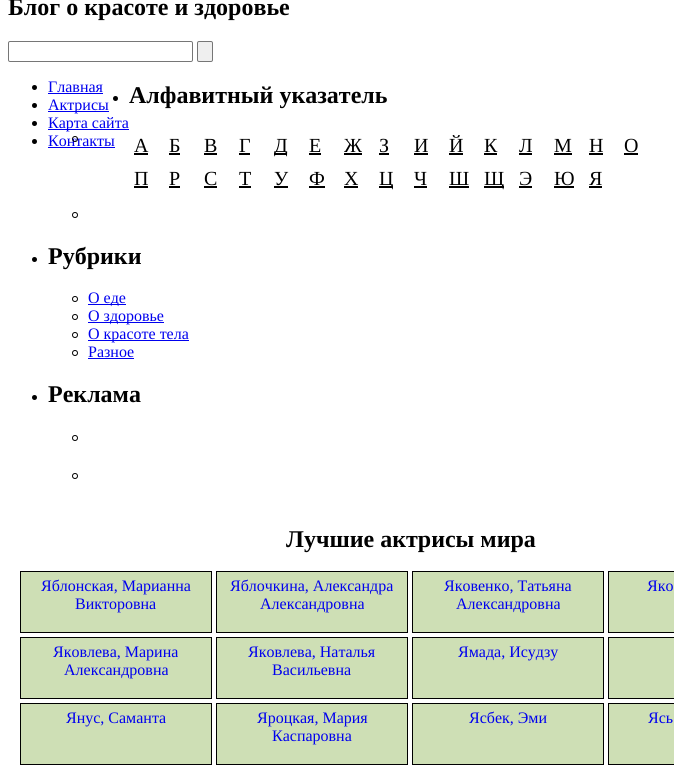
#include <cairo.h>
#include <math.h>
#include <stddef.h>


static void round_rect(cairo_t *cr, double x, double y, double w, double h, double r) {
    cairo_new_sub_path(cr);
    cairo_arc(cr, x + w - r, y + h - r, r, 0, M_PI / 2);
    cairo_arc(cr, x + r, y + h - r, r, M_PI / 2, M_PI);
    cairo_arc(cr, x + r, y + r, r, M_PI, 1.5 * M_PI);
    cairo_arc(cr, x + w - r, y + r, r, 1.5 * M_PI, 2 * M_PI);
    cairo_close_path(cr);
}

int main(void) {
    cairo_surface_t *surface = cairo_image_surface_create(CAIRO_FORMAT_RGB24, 674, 766);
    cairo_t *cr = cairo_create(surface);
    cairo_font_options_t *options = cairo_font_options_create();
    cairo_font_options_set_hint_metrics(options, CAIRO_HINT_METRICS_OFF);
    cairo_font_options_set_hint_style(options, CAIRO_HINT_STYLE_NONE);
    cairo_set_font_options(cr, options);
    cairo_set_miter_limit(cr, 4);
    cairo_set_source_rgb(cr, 1, 1, 1);
    cairo_paint(cr);
    cairo_select_font_face(cr, "Liberation Serif", CAIRO_FONT_SLANT_NORMAL, CAIRO_FONT_WEIGHT_BOLD);
    cairo_set_font_size(cr, 24);
    cairo_set_source_rgb(cr, 0, 0, 0);
    cairo_move_to(cr, 8, 15);
    cairo_show_text(cr, "Блог о красоте и здоровье");
    round_rect(cr, 8.5, 41.5, 184, 20, 1.5);
    cairo_set_source_rgb(cr, 0.463, 0.463, 0.463);
    cairo_set_line_width(cr, 1);
    cairo_stroke(cr);
    cairo_set_source_rgb(cr, 0.937, 0.937, 0.937);
    round_rect(cr, 197.5, 41.5, 15, 20, 1.5);
    cairo_fill_preserve(cr);
    cairo_set_source_rgb(cr, 0.463, 0.463, 0.463);
    cairo_stroke(cr);
    cairo_set_source_rgb(cr, 0, 0, 0);
    cairo_arc(cr, 34.5, 87.5, 2.5, 0, 2 * M_PI);
    cairo_fill(cr);
    cairo_select_font_face(cr, "Liberation Serif", CAIRO_FONT_SLANT_NORMAL, CAIRO_FONT_WEIGHT_NORMAL);
    cairo_set_font_size(cr, 16);
    cairo_set_source_rgb(cr, 0, 0, 0.933);
    cairo_move_to(cr, 48, 92);
    cairo_show_text(cr, "Главная");
    cairo_rectangle(cr, 48, 93, 55, 1);
    cairo_fill(cr);
    cairo_set_source_rgb(cr, 0, 0, 0);
    cairo_arc(cr, 34.5, 105.5, 2.5, 0, 2 * M_PI);
    cairo_fill(cr);
    cairo_set_source_rgb(cr, 0, 0, 0.933);
    cairo_rectangle(cr, 48, 111, 61, 1);
    cairo_fill(cr);
    cairo_move_to(cr, 48, 110);
    cairo_show_text(cr, "Актрисы");
    cairo_set_source_rgb(cr, 0, 0, 0);
    cairo_new_path(cr);
    cairo_arc(cr, 34.5, 123.5, 2.5, 0, 2 * M_PI);
    cairo_fill(cr);
    cairo_set_source_rgb(cr, 0, 0, 0.933);
    cairo_rectangle(cr, 48, 129, 81, 1);
    cairo_fill(cr);
    cairo_move_to(cr, 48, 128);
    cairo_show_text(cr, "Карта сайта");
    cairo_set_source_rgb(cr, 0, 0, 0);
    cairo_new_path(cr);
    cairo_arc(cr, 34.5, 141.5, 2.5, 0, 2 * M_PI);
    cairo_fill(cr);
    cairo_set_source_rgb(cr, 0, 0, 0.933);
    cairo_move_to(cr, 48, 146);
    cairo_show_text(cr, "Контакты");
    cairo_rectangle(cr, 48, 147, 67, 1);
    cairo_fill(cr);
    cairo_set_source_rgb(cr, 0, 0, 0);
    cairo_arc(cr, 115.5, 98.5, 2.5, 0, 2 * M_PI);
    cairo_fill(cr);
    cairo_select_font_face(cr, "Liberation Serif", CAIRO_FONT_SLANT_NORMAL, CAIRO_FONT_WEIGHT_BOLD);
    cairo_set_font_size(cr, 24);
    cairo_move_to(cr, 129, 103);
    cairo_show_text(cr, "Алфавитный указатель");
    cairo_new_path(cr);
    cairo_arc(cr, 75, 139, 2.5, 0, 2 * M_PI);
    cairo_stroke(cr);
    cairo_select_font_face(cr, "Liberation Serif", CAIRO_FONT_SLANT_NORMAL, CAIRO_FONT_WEIGHT_NORMAL);
    cairo_set_font_size(cr, 20);
    cairo_move_to(cr, 134, 152);
    cairo_show_text(cr, "А");
    cairo_rectangle(cr, 134, 153, 14, 2);
    cairo_fill(cr);
    cairo_move_to(cr, 169, 152);
    cairo_show_text(cr, "Б");
    cairo_rectangle(cr, 169, 153, 11, 2);
    cairo_fill(cr);
    cairo_move_to(cr, 204, 152);
    cairo_show_text(cr, "В");
    cairo_rectangle(cr, 204, 153, 13, 2);
    cairo_fill(cr);
    cairo_move_to(cr, 239, 152);
    cairo_show_text(cr, "Г");
    cairo_rectangle(cr, 239, 153, 11, 2);
    cairo_fill(cr);
    cairo_rectangle(cr, 274, 153, 13, 2);
    cairo_fill(cr);
    cairo_move_to(cr, 274, 152);
    cairo_show_text(cr, "Д");
    cairo_move_to(cr, 309, 152);
    cairo_show_text(cr, "Е");
    cairo_rectangle(cr, 309, 153, 12, 2);
    cairo_fill(cr);
    cairo_move_to(cr, 344, 152);
    cairo_show_text(cr, "Ж");
    cairo_rectangle(cr, 344, 153, 18, 2);
    cairo_fill(cr);
    cairo_move_to(cr, 379, 152);
    cairo_show_text(cr, "З");
    cairo_rectangle(cr, 379, 153, 10, 2);
    cairo_fill(cr);
    cairo_move_to(cr, 414, 152);
    cairo_show_text(cr, "И");
    cairo_rectangle(cr, 414, 153, 14, 2);
    cairo_fill(cr);
    cairo_move_to(cr, 449, 152);
    cairo_show_text(cr, "Й");
    cairo_rectangle(cr, 449, 153, 14, 2);
    cairo_fill(cr);
    cairo_move_to(cr, 484, 152);
    cairo_show_text(cr, "К");
    cairo_rectangle(cr, 484, 153, 13, 2);
    cairo_fill(cr);
    cairo_move_to(cr, 519, 152);
    cairo_show_text(cr, "Л");
    cairo_rectangle(cr, 519, 153, 13, 2);
    cairo_fill(cr);
    cairo_move_to(cr, 554, 152);
    cairo_show_text(cr, "М");
    cairo_rectangle(cr, 554, 153, 18, 2);
    cairo_fill(cr);
    cairo_move_to(cr, 589, 152);
    cairo_show_text(cr, "Н");
    cairo_rectangle(cr, 589, 153, 14, 2);
    cairo_fill(cr);
    cairo_move_to(cr, 624, 152);
    cairo_show_text(cr, "О");
    cairo_rectangle(cr, 624, 153, 14, 2);
    cairo_fill(cr);
    cairo_move_to(cr, 134, 185);
    cairo_show_text(cr, "П");
    cairo_rectangle(cr, 134, 186, 14, 2);
    cairo_fill(cr);
    cairo_move_to(cr, 169, 185);
    cairo_show_text(cr, "Р");
    cairo_rectangle(cr, 169, 186, 11, 2);
    cairo_fill(cr);
    cairo_move_to(cr, 204, 185);
    cairo_show_text(cr, "С");
    cairo_rectangle(cr, 204, 186, 13, 2);
    cairo_fill(cr);
    cairo_move_to(cr, 239, 185);
    cairo_show_text(cr, "Т");
    cairo_rectangle(cr, 239, 186, 12, 2);
    cairo_fill(cr);
    cairo_move_to(cr, 274, 185);
    cairo_show_text(cr, "У");
    cairo_rectangle(cr, 274, 186, 14, 2);
    cairo_fill(cr);
    cairo_move_to(cr, 309, 185);
    cairo_show_text(cr, "Ф");
    cairo_rectangle(cr, 309, 186, 16, 2);
    cairo_fill(cr);
    cairo_move_to(cr, 344, 185);
    cairo_show_text(cr, "Х");
    cairo_rectangle(cr, 344, 186, 14, 2);
    cairo_fill(cr);
    cairo_rectangle(cr, 379, 186, 14, 2);
    cairo_fill(cr);
    cairo_move_to(cr, 379, 185);
    cairo_show_text(cr, "Ц");
    cairo_move_to(cr, 414, 185);
    cairo_show_text(cr, "Ч");
    cairo_rectangle(cr, 414, 186, 13, 2);
    cairo_fill(cr);
    cairo_move_to(cr, 449, 185);
    cairo_show_text(cr, "Ш");
    cairo_rectangle(cr, 449, 186, 20, 2);
    cairo_fill(cr);
    cairo_rectangle(cr, 484, 186, 20, 2);
    cairo_fill(cr);
    cairo_move_to(cr, 484, 185);
    cairo_show_text(cr, "Щ");
    cairo_move_to(cr, 519, 185);
    cairo_show_text(cr, "Э");
    cairo_rectangle(cr, 519, 186, 13, 2);
    cairo_fill(cr);
    cairo_move_to(cr, 554, 185);
    cairo_show_text(cr, "Ю");
    cairo_rectangle(cr, 554, 186, 20, 2);
    cairo_fill(cr);
    cairo_move_to(cr, 589, 185);
    cairo_show_text(cr, "Я");
    cairo_rectangle(cr, 589, 186, 13, 2);
    cairo_fill(cr);
    cairo_arc(cr, 75, 215, 2.5, 0, 2 * M_PI);
    cairo_stroke(cr);
    cairo_arc(cr, 34.5, 259.5, 2.5, 0, 2 * M_PI);
    cairo_fill(cr);
    cairo_select_font_face(cr, "Liberation Serif", CAIRO_FONT_SLANT_NORMAL, CAIRO_FONT_WEIGHT_BOLD);
    cairo_set_font_size(cr, 24);
    cairo_move_to(cr, 48, 264);
    cairo_show_text(cr, "Рубрики");
    cairo_new_path(cr);
    cairo_arc(cr, 75, 299, 2.5, 0, 2 * M_PI);
    cairo_stroke(cr);
    cairo_set_source_rgb(cr, 0, 0, 0.933);
    cairo_rectangle(cr, 88, 304, 38, 1);
    cairo_fill(cr);
    cairo_select_font_face(cr, "Liberation Serif", CAIRO_FONT_SLANT_NORMAL, CAIRO_FONT_WEIGHT_NORMAL);
    cairo_set_font_size(cr, 16);
    cairo_move_to(cr, 88, 303);
    cairo_show_text(cr, "О еде");
    cairo_new_path(cr);
    cairo_arc(cr, 75, 317, 2.5, 0, 2 * M_PI);
    cairo_set_source_rgb(cr, 0, 0, 0);
    cairo_stroke(cr);
    cairo_set_source_rgb(cr, 0, 0, 0.933);
    cairo_rectangle(cr, 88, 322, 76, 1);
    cairo_fill(cr);
    cairo_move_to(cr, 88, 321);
    cairo_show_text(cr, "О здоровье");
    cairo_new_path(cr);
    cairo_arc(cr, 75, 335, 2.5, 0, 2 * M_PI);
    cairo_set_source_rgb(cr, 0, 0, 0);
    cairo_stroke(cr);
    cairo_set_source_rgb(cr, 0, 0, 0.933);
    cairo_rectangle(cr, 88, 340, 101, 1);
    cairo_fill(cr);
    cairo_move_to(cr, 88, 339);
    cairo_show_text(cr, "О красоте тела");
    cairo_new_path(cr);
    cairo_arc(cr, 75, 353, 2.5, 0, 2 * M_PI);
    cairo_set_source_rgb(cr, 0, 0, 0);
    cairo_stroke(cr);
    cairo_set_source_rgb(cr, 0, 0, 0.933);
    cairo_move_to(cr, 88, 357);
    cairo_show_text(cr, "Разное");
    cairo_rectangle(cr, 88, 358, 46, 1);
    cairo_fill(cr);
    cairo_set_source_rgb(cr, 0, 0, 0);
    cairo_arc(cr, 34.5, 397.5, 2.5, 0, 2 * M_PI);
    cairo_fill(cr);
    cairo_select_font_face(cr, "Liberation Serif", CAIRO_FONT_SLANT_NORMAL, CAIRO_FONT_WEIGHT_BOLD);
    cairo_set_font_size(cr, 24);
    cairo_move_to(cr, 48, 402);
    cairo_show_text(cr, "Реклама");
    cairo_new_path(cr);
    cairo_arc(cr, 75, 438, 2.5, 0, 2 * M_PI);
    cairo_stroke(cr);
    cairo_arc(cr, 75, 476, 2.5, 0, 2 * M_PI);
    cairo_stroke(cr);
    cairo_move_to(cr, 286, 547);
    cairo_show_text(cr, "Лучшие актрисы мира");
    cairo_set_source_rgb(cr, 0.808, 0.875, 0.71);
    cairo_rectangle(cr, 20.5, 571.5, 191, 61);
    cairo_fill_preserve(cr);
    cairo_set_source_rgb(cr, 0, 0, 0);
    cairo_stroke(cr);
    cairo_select_font_face(cr, "Liberation Serif", CAIRO_FONT_SLANT_NORMAL, CAIRO_FONT_WEIGHT_NORMAL);
    cairo_set_font_size(cr, 16);
    cairo_set_source_rgb(cr, 0, 0, 0.933);
    cairo_move_to(cr, 41, 591);
    cairo_show_text(cr, "Яблонская, Марианна");
    cairo_move_to(cr, 75, 609);
    cairo_show_text(cr, "Викторовна");
    cairo_set_source_rgb(cr, 0.808, 0.875, 0.71);
    cairo_rectangle(cr, 216.5, 571.5, 191, 61);
    cairo_fill_preserve(cr);
    cairo_set_source_rgb(cr, 0, 0, 0);
    cairo_stroke(cr);
    cairo_set_source_rgb(cr, 0, 0, 0.933);
    cairo_move_to(cr, 230, 591);
    cairo_show_text(cr, "Яблочкина, Александра");
    cairo_move_to(cr, 260, 609);
    cairo_show_text(cr, "Александровна");
    cairo_set_source_rgb(cr, 0.808, 0.875, 0.71);
    cairo_rectangle(cr, 412.5, 571.5, 191, 61);
    cairo_fill_preserve(cr);
    cairo_set_source_rgb(cr, 0, 0, 0);
    cairo_stroke(cr);
    cairo_set_source_rgb(cr, 0, 0, 0.933);
    cairo_move_to(cr, 444, 591);
    cairo_show_text(cr, "Яковенко, Татьяна");
    cairo_move_to(cr, 456, 609);
    cairo_show_text(cr, "Александровна");
    cairo_set_source_rgb(cr, 0.808, 0.875, 0.71);
    cairo_rectangle(cr, 608.5, 571.5, 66, 61);
    cairo_fill_preserve(cr);
    cairo_set_source_rgb(cr, 0, 0, 0);
    cairo_stroke(cr);
    cairo_set_source_rgb(cr, 0, 0, 0.933);
    cairo_move_to(cr, 647, 591);
    cairo_show_text(cr, "Яко");
    cairo_set_source_rgb(cr, 0.808, 0.875, 0.71);
    cairo_rectangle(cr, 20.5, 637.5, 191, 61);
    cairo_fill_preserve(cr);
    cairo_set_source_rgb(cr, 0, 0, 0);
    cairo_stroke(cr);
    cairo_set_source_rgb(cr, 0, 0, 0.933);
    cairo_move_to(cr, 53, 657);
    cairo_show_text(cr, "Яковлева, Марина");
    cairo_move_to(cr, 64, 675);
    cairo_show_text(cr, "Александровна");
    cairo_set_source_rgb(cr, 0.808, 0.875, 0.71);
    cairo_rectangle(cr, 216.5, 637.5, 191, 61);
    cairo_fill_preserve(cr);
    cairo_set_source_rgb(cr, 0, 0, 0);
    cairo_stroke(cr);
    cairo_set_source_rgb(cr, 0, 0, 0.933);
    cairo_move_to(cr, 248, 657);
    cairo_show_text(cr, "Яковлева, Наталья");
    cairo_move_to(cr, 272, 675);
    cairo_show_text(cr, "Васильевна");
    cairo_set_source_rgb(cr, 0.808, 0.875, 0.71);
    cairo_rectangle(cr, 412.5, 637.5, 191, 61);
    cairo_fill_preserve(cr);
    cairo_set_source_rgb(cr, 0, 0, 0);
    cairo_stroke(cr);
    cairo_set_source_rgb(cr, 0, 0, 0.933);
    cairo_move_to(cr, 458, 657);
    cairo_show_text(cr, "Ямада, Исудзу");
    cairo_set_source_rgb(cr, 0.808, 0.875, 0.71);
    cairo_rectangle(cr, 608.5, 637.5, 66, 61);
    cairo_fill_preserve(cr);
    cairo_set_source_rgb(cr, 0, 0, 0);
    cairo_stroke(cr);
    cairo_set_source_rgb(cr, 0.808, 0.875, 0.71);
    cairo_rectangle(cr, 20.5, 703.5, 191, 61);
    cairo_fill_preserve(cr);
    cairo_set_source_rgb(cr, 0, 0, 0);
    cairo_stroke(cr);
    cairo_set_source_rgb(cr, 0, 0, 0.933);
    cairo_move_to(cr, 66, 723);
    cairo_show_text(cr, "Янус, Саманта");
    cairo_set_source_rgb(cr, 0.808, 0.875, 0.71);
    cairo_rectangle(cr, 216.5, 703.5, 191, 61);
    cairo_fill_preserve(cr);
    cairo_set_source_rgb(cr, 0, 0, 0);
    cairo_stroke(cr);
    cairo_set_source_rgb(cr, 0, 0, 0.933);
    cairo_move_to(cr, 257, 723);
    cairo_show_text(cr, "Яроцкая, Мария");
    cairo_move_to(cr, 272, 741);
    cairo_show_text(cr, "Каспаровна");
    cairo_set_source_rgb(cr, 0.808, 0.875, 0.71);
    cairo_rectangle(cr, 412.5, 703.5, 191, 61);
    cairo_fill_preserve(cr);
    cairo_set_source_rgb(cr, 0, 0, 0);
    cairo_stroke(cr);
    cairo_set_source_rgb(cr, 0, 0, 0.933);
    cairo_move_to(cr, 469, 723);
    cairo_show_text(cr, "Ясбек, Эми");
    cairo_set_source_rgb(cr, 0.808, 0.875, 0.71);
    cairo_rectangle(cr, 608.5, 703.5, 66, 61);
    cairo_fill_preserve(cr);
    cairo_set_source_rgb(cr, 0, 0, 0);
    cairo_stroke(cr);
    cairo_set_source_rgb(cr, 0, 0, 0.933);
    cairo_move_to(cr, 648, 723);
    cairo_show_text(cr, "Ясь");
    cairo_surface_write_to_png(surface, "page.png");
    cairo_font_options_destroy(options);
    cairo_destroy(cr);
    cairo_surface_destroy(surface);
    return 0;
}
